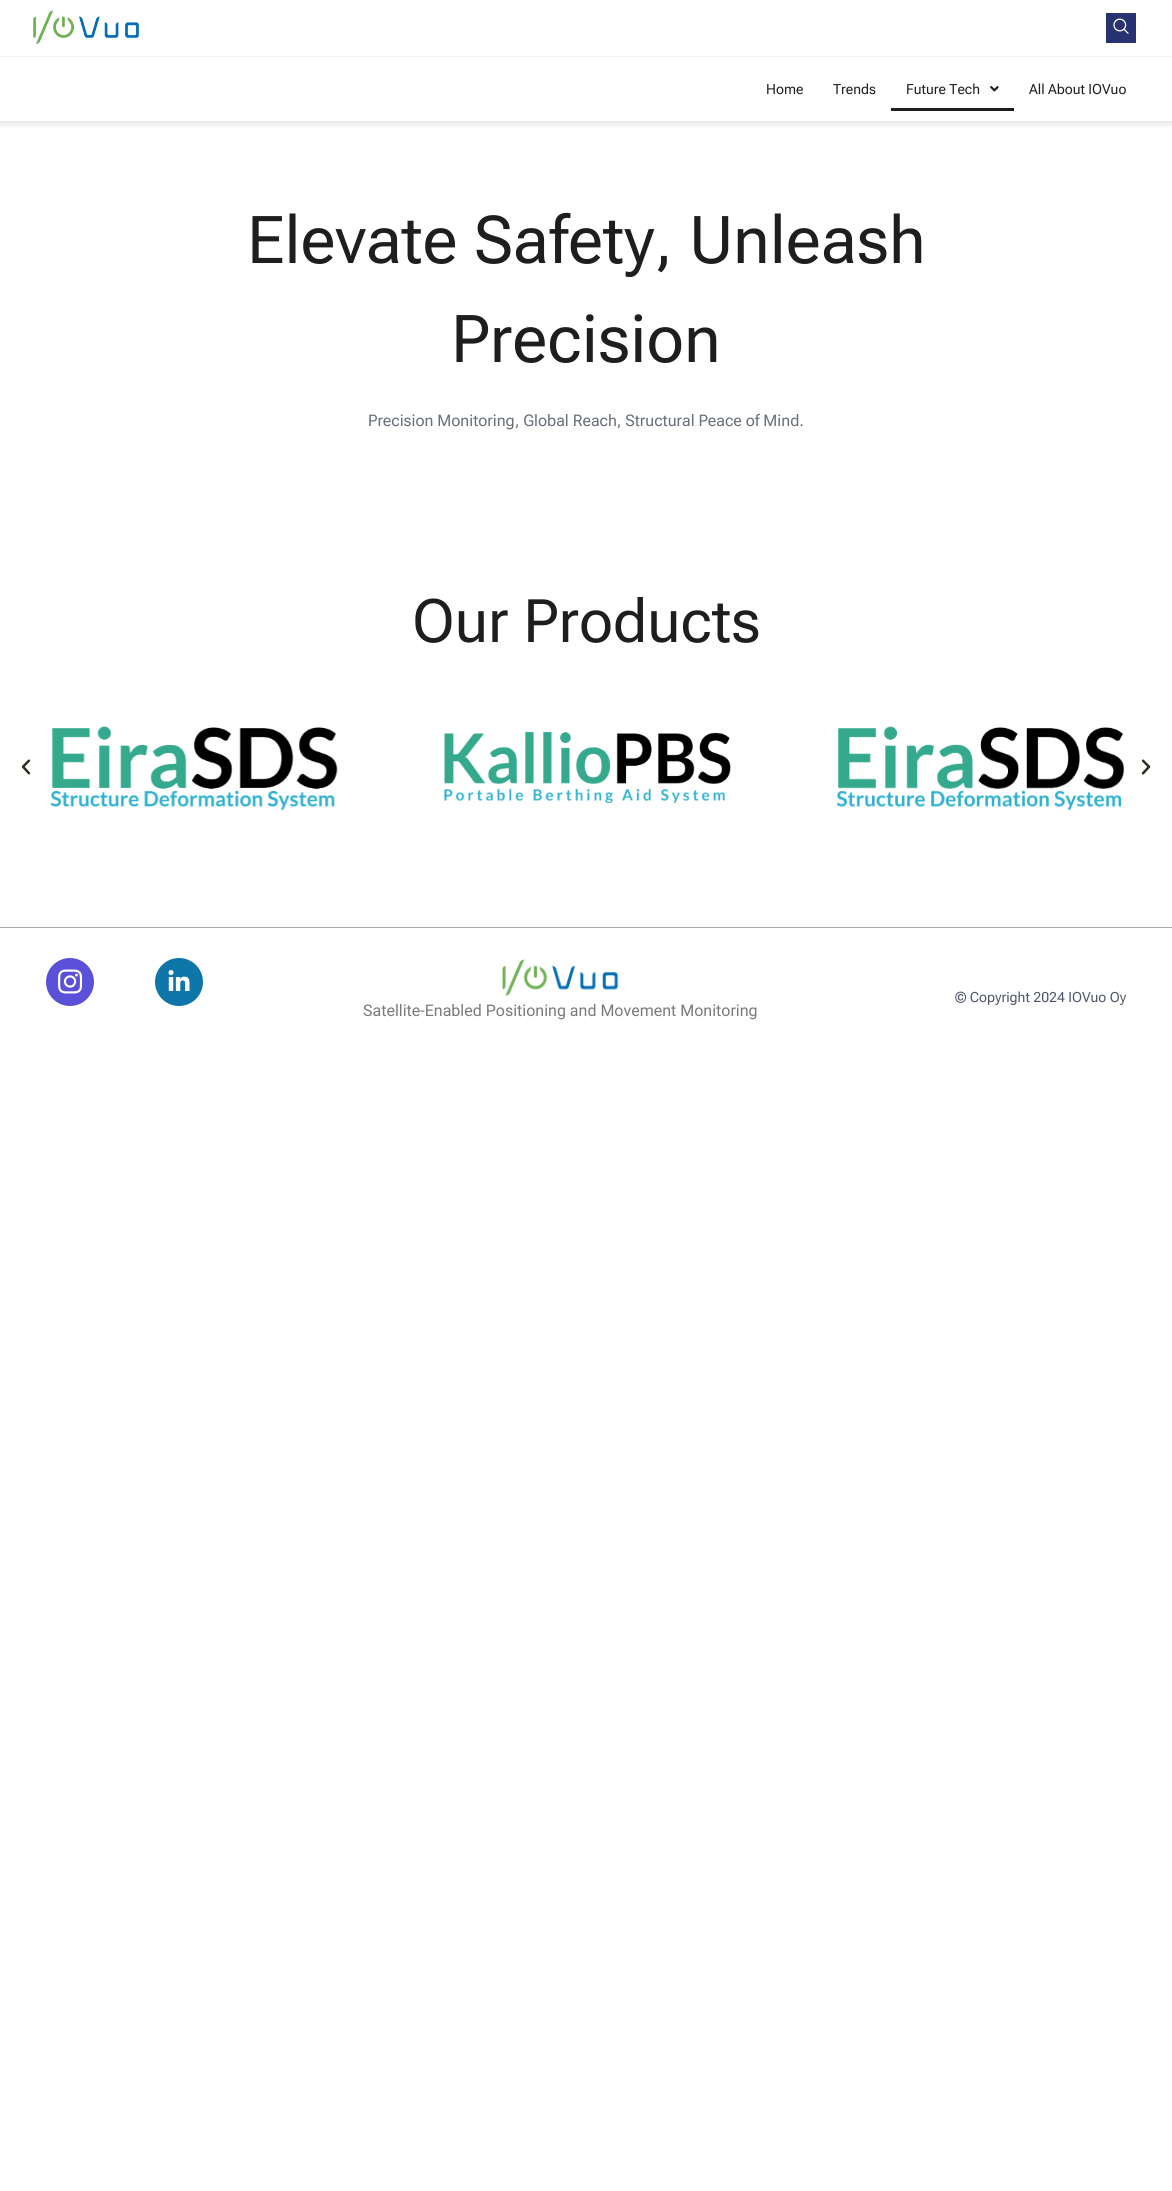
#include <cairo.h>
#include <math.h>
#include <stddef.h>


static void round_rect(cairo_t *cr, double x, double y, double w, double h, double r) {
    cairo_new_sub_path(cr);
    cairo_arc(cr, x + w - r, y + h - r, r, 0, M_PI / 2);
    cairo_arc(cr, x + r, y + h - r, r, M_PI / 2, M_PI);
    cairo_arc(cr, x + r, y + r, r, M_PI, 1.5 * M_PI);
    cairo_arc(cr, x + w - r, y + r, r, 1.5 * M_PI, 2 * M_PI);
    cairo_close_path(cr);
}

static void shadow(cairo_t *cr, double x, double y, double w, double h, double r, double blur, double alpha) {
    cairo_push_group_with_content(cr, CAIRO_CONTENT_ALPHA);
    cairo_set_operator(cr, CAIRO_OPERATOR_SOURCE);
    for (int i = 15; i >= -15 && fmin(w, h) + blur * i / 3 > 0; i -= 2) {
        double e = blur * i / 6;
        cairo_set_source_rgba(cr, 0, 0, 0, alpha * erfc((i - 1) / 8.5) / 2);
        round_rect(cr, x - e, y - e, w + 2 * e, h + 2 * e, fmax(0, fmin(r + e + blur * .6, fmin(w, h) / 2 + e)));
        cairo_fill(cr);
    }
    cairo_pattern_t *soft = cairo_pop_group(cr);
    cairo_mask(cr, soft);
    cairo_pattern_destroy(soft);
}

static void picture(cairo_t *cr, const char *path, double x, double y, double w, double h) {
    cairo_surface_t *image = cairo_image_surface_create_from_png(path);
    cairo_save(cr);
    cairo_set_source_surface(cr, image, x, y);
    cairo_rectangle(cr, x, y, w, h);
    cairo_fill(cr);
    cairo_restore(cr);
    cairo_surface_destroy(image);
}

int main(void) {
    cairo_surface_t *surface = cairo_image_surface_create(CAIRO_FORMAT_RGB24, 1172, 2191);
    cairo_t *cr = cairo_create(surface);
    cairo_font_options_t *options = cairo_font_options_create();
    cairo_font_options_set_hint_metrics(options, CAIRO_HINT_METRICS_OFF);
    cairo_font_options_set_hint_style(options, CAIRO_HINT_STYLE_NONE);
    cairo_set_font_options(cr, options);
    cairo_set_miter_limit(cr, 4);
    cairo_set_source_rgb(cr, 1, 1, 1);
    cairo_paint(cr);
    cairo_save(cr);
    cairo_rectangle(cr, 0, 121, 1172, 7);
    cairo_clip(cr);
    cairo_set_source_rgb(cr, 0, 0, 0);
    shadow(cr, 0, 0, 1172, 121, 0, 5, 0.21);
    cairo_restore(cr);
    cairo_set_source_rgb(cr, 0.957, 0.957, 0.957);
    cairo_rectangle(cr, 0, 56, 1172, 1);
    cairo_fill(cr);
    picture(cr, "img1.png", 33, 10, 106, 34);
    cairo_set_source_rgb(cr, 0.153, 0.196, 0.447);
    cairo_rectangle(cr, 1106, 13, 30, 30);
    cairo_fill(cr);
    picture(cr, "img2.png", 1113, 18, 16, 16);
    cairo_select_font_face(cr, "Roboto Flex", CAIRO_FONT_SLANT_NORMAL, CAIRO_FONT_WEIGHT_NORMAL);
    cairo_set_font_size(cr, 14);
    cairo_set_source_rgb(cr, 0.118, 0.118, 0.118);
    cairo_move_to(cr, 766, 94);
    cairo_show_text(cr, "Home");
    cairo_move_to(cr, 833, 94);
    cairo_show_text(cr, "Trends");
    cairo_move_to(cr, 906, 94);
    cairo_show_text(cr, "Future Tech");
    picture(cr, "img3.png", 990, 86, 9, 6);
    cairo_rectangle(cr, 891, 108, 123, 3);
    cairo_fill(cr);
    cairo_move_to(cr, 1029, 94);
    cairo_show_text(cr, "All About IOVuo");
    cairo_set_font_size(cr, 66);
    cairo_move_to(cr, 247, 263);
    cairo_show_text(cr, "Elevate Safety, Unleash");
    cairo_move_to(cr, 451, 362);
    cairo_show_text(cr, "Precision");
    cairo_set_font_size(cr, 16);
    cairo_set_source_rgb(cr, 0.412, 0.435, 0.475);
    cairo_move_to(cr, 368, 426);
    cairo_show_text(cr, "Precision Monitoring, Global Reach, Structural Peace of Mind.");
    cairo_set_font_size(cr, 60);
    cairo_set_source_rgb(cr, 0.118, 0.118, 0.118);
    cairo_move_to(cr, 412, 642);
    cairo_show_text(cr, "Our Products");
    picture(cr, "img4.png", 21, 759, 10, 16);
    picture(cr, "img5.png", 50, 726, 288, 84);
    picture(cr, "img6.png", 443, 731, 288, 72);
    picture(cr, "img7.png", 836, 726, 288, 84);
    picture(cr, "img8.png", 1141, 759, 10, 16);
    cairo_set_source_rgb(cr, 0.659, 0.659, 0.659);
    cairo_rectangle(cr, 0, 927, 1172, 1);
    cairo_fill(cr);
    cairo_set_source_rgb(cr, 0.357, 0.318, 0.847);
    cairo_arc(cr, 70, 982, 24, 0, 2 * M_PI);
    cairo_fill(cr);
    picture(cr, "img9.png", 58, 969, 25, 25);
    cairo_set_source_rgb(cr, 0.055, 0.463, 0.659);
    cairo_arc(cr, 179, 982, 24, 0, 2 * M_PI);
    cairo_fill(cr);
    picture(cr, "img10.png", 168, 970, 22, 21);
    cairo_set_font_size(cr, 14);
    cairo_set_source_rgb(cr, 0.31, 0.337, 0.396);
    cairo_move_to(cr, 955, 1002);
    cairo_show_text(cr, "© Copyright 2024 IOVuo Oy");
    picture(cr, "img11.png", 502, 959, 117, 38);
    cairo_select_font_face(cr, "Roboto", CAIRO_FONT_SLANT_NORMAL, CAIRO_FONT_WEIGHT_NORMAL);
    cairo_set_font_size(cr, 16);
    cairo_set_source_rgb(cr, 0.478, 0.478, 0.478);
    cairo_move_to(cr, 363, 1016);
    cairo_show_text(cr, "Satellite-Enabled Positioning and Movement Monitoring");
    cairo_surface_write_to_png(surface, "page.png");
    cairo_font_options_destroy(options);
    cairo_destroy(cr);
    cairo_surface_destroy(surface);
    return 0;
}
